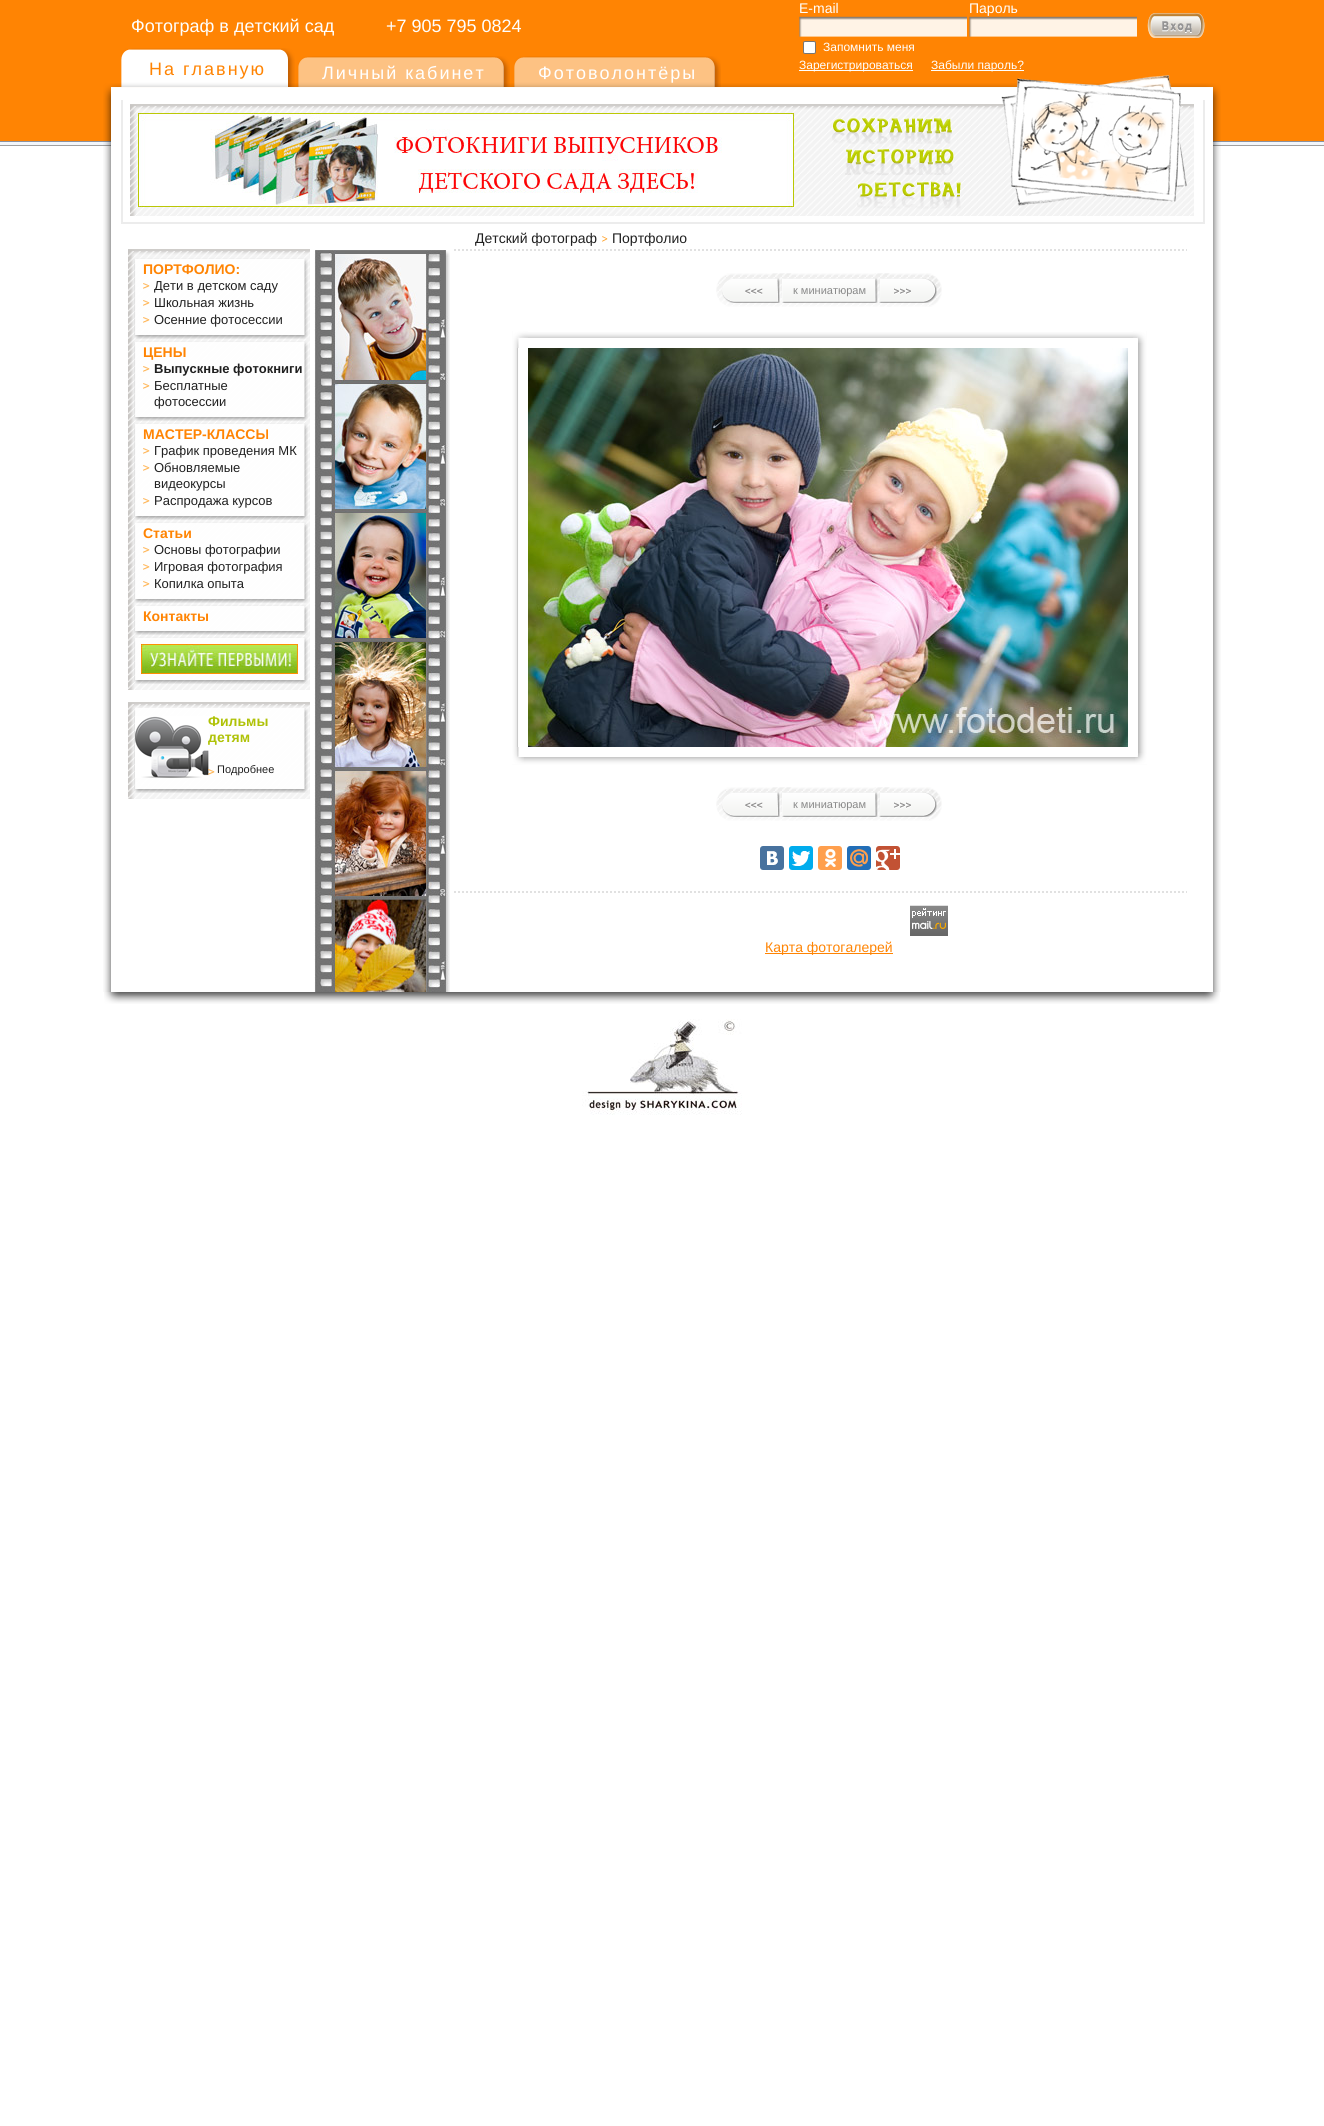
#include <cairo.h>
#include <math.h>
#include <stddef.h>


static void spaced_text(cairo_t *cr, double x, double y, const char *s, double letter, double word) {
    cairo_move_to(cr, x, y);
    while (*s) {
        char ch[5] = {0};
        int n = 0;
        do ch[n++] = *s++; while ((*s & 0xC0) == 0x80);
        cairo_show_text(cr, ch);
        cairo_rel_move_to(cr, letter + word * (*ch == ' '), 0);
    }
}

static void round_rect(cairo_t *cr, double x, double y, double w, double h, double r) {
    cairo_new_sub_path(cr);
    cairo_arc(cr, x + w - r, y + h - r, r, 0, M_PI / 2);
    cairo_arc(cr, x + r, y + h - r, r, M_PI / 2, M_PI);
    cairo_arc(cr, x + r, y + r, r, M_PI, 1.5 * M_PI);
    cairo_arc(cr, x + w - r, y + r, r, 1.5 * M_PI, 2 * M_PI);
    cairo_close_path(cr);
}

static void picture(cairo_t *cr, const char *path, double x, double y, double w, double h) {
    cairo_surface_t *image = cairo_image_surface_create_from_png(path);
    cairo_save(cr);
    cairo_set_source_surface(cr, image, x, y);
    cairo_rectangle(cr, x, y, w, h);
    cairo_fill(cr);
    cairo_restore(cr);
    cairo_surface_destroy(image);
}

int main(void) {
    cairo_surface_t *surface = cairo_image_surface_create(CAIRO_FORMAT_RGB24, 1324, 2126);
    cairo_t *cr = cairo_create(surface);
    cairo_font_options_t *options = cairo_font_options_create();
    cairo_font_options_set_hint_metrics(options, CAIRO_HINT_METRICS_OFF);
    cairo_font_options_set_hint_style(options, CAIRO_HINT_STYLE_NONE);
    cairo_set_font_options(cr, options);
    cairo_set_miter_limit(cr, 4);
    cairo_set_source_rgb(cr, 1, 1, 1);
    cairo_paint(cr);
    picture(cr, "img1.png", 0, 0, 1324, 146);
    picture(cr, "img11.png", 103, 100, 1118, 892);
    cairo_rectangle(cr, 122, 98, 1082, 125);
    cairo_set_source_rgb(cr, 0.922, 0.922, 0.922);
    cairo_stroke(cr);
    picture(cr, "img2.png", 103, 83, 1118, 17);
    cairo_select_font_face(cr, "Liberation Sans", CAIRO_FONT_SLANT_NORMAL, CAIRO_FONT_WEIGHT_NORMAL);
    cairo_set_font_size(cr, 18);
    cairo_set_source_rgb(cr, 1, 1, 1);
    cairo_move_to(cr, 131, 32);
    cairo_show_text(cr, "Фотограф в детский сад");
    cairo_move_to(cr, 386, 32);
    cairo_show_text(cr, "+7 905 795 0824");
    cairo_set_font_size(cr, 14);
    cairo_move_to(cr, 799, 13);
    cairo_show_text(cr, "E-mail");
    picture(cr, "img3.png", 799, 16, 168, 21);
    cairo_move_to(cr, 969, 13);
    cairo_show_text(cr, "Пароль");
    picture(cr, "img3.png", 969, 16, 168, 21);
    picture(cr, "img4.png", 1147, 13, 58, 25);
    round_rect(cr, 803.5, 41.5, 12, 12, 1.5);
    cairo_fill_preserve(cr);
    cairo_set_source_rgb(cr, 0.463, 0.463, 0.463);
    cairo_set_line_width(cr, 1);
    cairo_stroke(cr);
    cairo_set_font_size(cr, 12);
    cairo_set_source_rgb(cr, 1, 1, 1);
    cairo_move_to(cr, 823, 51);
    cairo_show_text(cr, "Запомнить меня");
    cairo_rectangle(cr, 799, 70, 114, 1);
    cairo_fill(cr);
    cairo_move_to(cr, 799, 69);
    cairo_show_text(cr, "Зарегистрироваться");
    cairo_rectangle(cr, 931, 70, 93, 1);
    cairo_fill(cr);
    cairo_move_to(cr, 931, 69);
    cairo_show_text(cr, "Забыли пароль?");
    picture(cr, "img5.png", 279, 48, 16, 39);
    picture(cr, "img6.png", 121, 48, 158, 39);
    cairo_set_font_size(cr, 18);
    cairo_set_source_rgb(cr, 1, 0.518, 0.012);
    spaced_text(cr, 149, 75, "На главную", 2, 0);
    picture(cr, "img7.png", 495, 56, 15, 31);
    picture(cr, "img8.png", 298, 56, 197, 31);
    cairo_set_source_rgb(cr, 1, 1, 1);
    spaced_text(cr, 322, 79, "Личный кабинет", 2, 0);
    picture(cr, "img7.png", 706, 56, 15, 31);
    picture(cr, "img9.png", 514, 56, 192, 31);
    spaced_text(cr, 538, 79, "Фотоволонтёры", 2, 0);
    picture(cr, "img12.png", 130, 104, 1064, 112);
    picture(cr, "img10.png", 832, 75, 355, 134);
    picture(cr, "img13.png", 138, 113, 656, 94);
    cairo_set_font_size(cr, 14);
    cairo_set_source_rgb(cr, 0.125, 0.125, 0.125);
    cairo_move_to(cr, 475, 243);
    cairo_show_text(cr, "Детский фотограф");
    picture(cr, "img14.png", 602, 236, 6, 6);
    cairo_move_to(cr, 612, 243);
    cairo_show_text(cr, "Портфолио");
    picture(cr, "img15.png", 128, 249, 182, 441);
    picture(cr, "img16.png", 134, 258, 174, 7);
    picture(cr, "img17.png", 134, 265, 174, 67);
    cairo_select_font_face(cr, "Liberation Sans", CAIRO_FONT_SLANT_NORMAL, CAIRO_FONT_WEIGHT_BOLD);
    cairo_set_source_rgb(cr, 1, 0.518, 0.012);
    cairo_move_to(cr, 143, 274);
    cairo_show_text(cr, "ПОРТФОЛИО:");
    picture(cr, "img18.png", 143, 283, 7, 6);
    cairo_select_font_face(cr, "Liberation Sans", CAIRO_FONT_SLANT_NORMAL, CAIRO_FONT_WEIGHT_NORMAL);
    cairo_set_font_size(cr, 13);
    cairo_set_source_rgb(cr, 0.125, 0.125, 0.125);
    cairo_move_to(cr, 154, 290);
    cairo_show_text(cr, "Дети в детском саду");
    picture(cr, "img19.png", 143, 300, 7, 6);
    cairo_move_to(cr, 154, 307);
    cairo_show_text(cr, "Школьная жизнь");
    picture(cr, "img20.png", 143, 317, 7, 6);
    cairo_move_to(cr, 154, 324);
    cairo_show_text(cr, "Осенние фотосессии");
    picture(cr, "img21.png", 134, 332, 174, 7);
    picture(cr, "img22.png", 134, 341, 174, 7);
    picture(cr, "img23.png", 134, 348, 174, 66);
    cairo_select_font_face(cr, "Liberation Sans", CAIRO_FONT_SLANT_NORMAL, CAIRO_FONT_WEIGHT_BOLD);
    cairo_set_font_size(cr, 14);
    cairo_set_source_rgb(cr, 1, 0.518, 0.012);
    cairo_move_to(cr, 143, 357);
    cairo_show_text(cr, "ЦЕНЫ");
    picture(cr, "img24.png", 143, 366, 7, 6);
    cairo_set_font_size(cr, 13);
    cairo_set_source_rgb(cr, 0.125, 0.125, 0.125);
    cairo_move_to(cr, 154, 373);
    cairo_show_text(cr, "Выпускные фотокниги");
    picture(cr, "img25.png", 143, 383, 7, 6);
    cairo_select_font_face(cr, "Liberation Sans", CAIRO_FONT_SLANT_NORMAL, CAIRO_FONT_WEIGHT_NORMAL);
    cairo_move_to(cr, 154, 390);
    cairo_show_text(cr, "Бесплатные");
    cairo_move_to(cr, 154, 406);
    cairo_show_text(cr, "фотосессии");
    picture(cr, "img26.png", 134, 414, 174, 7);
    picture(cr, "img27.png", 134, 423, 174, 7);
    picture(cr, "img28.png", 134, 430, 174, 83);
    cairo_select_font_face(cr, "Liberation Sans", CAIRO_FONT_SLANT_NORMAL, CAIRO_FONT_WEIGHT_BOLD);
    cairo_set_font_size(cr, 14);
    cairo_set_source_rgb(cr, 1, 0.518, 0.012);
    cairo_move_to(cr, 143, 439);
    cairo_show_text(cr, "МАСТЕР-КЛАССЫ");
    picture(cr, "img24.png", 143, 448, 7, 6);
    cairo_select_font_face(cr, "Liberation Sans", CAIRO_FONT_SLANT_NORMAL, CAIRO_FONT_WEIGHT_NORMAL);
    cairo_set_font_size(cr, 13);
    cairo_set_source_rgb(cr, 0.125, 0.125, 0.125);
    cairo_move_to(cr, 154, 455);
    cairo_show_text(cr, "График проведения МК");
    picture(cr, "img29.png", 143, 465, 7, 6);
    cairo_move_to(cr, 154, 472);
    cairo_show_text(cr, "Обновляемые");
    cairo_move_to(cr, 154, 488);
    cairo_show_text(cr, "видеокурсы");
    picture(cr, "img30.png", 143, 498, 7, 6);
    cairo_move_to(cr, 154, 505);
    cairo_show_text(cr, "Распродажа курсов");
    picture(cr, "img31.png", 134, 513, 174, 7);
    picture(cr, "img32.png", 134, 522, 174, 7);
    picture(cr, "img33.png", 134, 529, 174, 67);
    cairo_select_font_face(cr, "Liberation Sans", CAIRO_FONT_SLANT_NORMAL, CAIRO_FONT_WEIGHT_BOLD);
    cairo_set_font_size(cr, 14);
    cairo_set_source_rgb(cr, 1, 0.518, 0.012);
    cairo_move_to(cr, 143, 538);
    cairo_show_text(cr, "Статьи");
    picture(cr, "img19.png", 143, 547, 7, 6);
    cairo_select_font_face(cr, "Liberation Sans", CAIRO_FONT_SLANT_NORMAL, CAIRO_FONT_WEIGHT_NORMAL);
    cairo_set_font_size(cr, 13);
    cairo_set_source_rgb(cr, 0.125, 0.125, 0.125);
    cairo_move_to(cr, 154, 554);
    cairo_show_text(cr, "Основы фотографии");
    picture(cr, "img34.png", 143, 564, 7, 6);
    cairo_move_to(cr, 154, 571);
    cairo_show_text(cr, "Игровая фотография");
    picture(cr, "img35.png", 143, 581, 7, 6);
    cairo_move_to(cr, 154, 588);
    cairo_show_text(cr, "Копилка опыта");
    picture(cr, "img36.png", 134, 596, 174, 7);
    picture(cr, "img37.png", 134, 605, 174, 7);
    picture(cr, "img38.png", 134, 612, 174, 16);
    cairo_select_font_face(cr, "Liberation Sans", CAIRO_FONT_SLANT_NORMAL, CAIRO_FONT_WEIGHT_BOLD);
    cairo_set_font_size(cr, 14);
    cairo_set_source_rgb(cr, 1, 0.518, 0.012);
    cairo_move_to(cr, 143, 621);
    cairo_show_text(cr, "Контакты");
    picture(cr, "img39.png", 134, 628, 174, 7);
    picture(cr, "img40.png", 134, 637, 174, 7);
    picture(cr, "img41.png", 134, 644, 174, 33);
    picture(cr, "img42.png", 141, 644, 157, 30);
    picture(cr, "img43.png", 134, 677, 174, 7);
    picture(cr, "img44.png", 128, 702, 182, 97);
    picture(cr, "img45.png", 134, 708, 174, 6);
    picture(cr, "img46.png", 134, 714, 174, 72);
    picture(cr, "img47.png", 135, 716, 74, 62);
    cairo_set_source_rgb(cr, 0.686, 0.761, 0.031);
    cairo_move_to(cr, 208, 726);
    cairo_show_text(cr, "Фильмы");
    cairo_move_to(cr, 208, 742);
    cairo_show_text(cr, "детям");
    picture(cr, "img48.png", 208, 769, 7, 6);
    cairo_select_font_face(cr, "Liberation Sans", CAIRO_FONT_SLANT_NORMAL, CAIRO_FONT_WEIGHT_NORMAL);
    cairo_set_font_size(cr, 11);
    cairo_set_source_rgb(cr, 0.125, 0.125, 0.125);
    cairo_move_to(cr, 217, 773);
    cairo_show_text(cr, "Подробнее");
    picture(cr, "img49.png", 134, 786, 174, 7);
    picture(cr, "img50.png", 314, 250, 136, 742);
    cairo_new_path(cr);
    cairo_move_to(cr, 454, 250);
    cairo_line_to(cr, 1187, 250);
    cairo_set_source_rgb(cr, 0.882, 0.882, 0.882);
    cairo_set_line_width(cr, 2);
    cairo_set_dash(cr, (double[]){2, 2}, 2, 0);
    cairo_stroke(cr);
    picture(cr, "img51.png", 716, 273, 226, 34);
    picture(cr, "img52.png", 722, 278, 58, 25);
    picture(cr, "img53.png", 781, 278, 97, 25);
    cairo_set_source_rgb(cr, 0.537, 0.537, 0.537);
    cairo_move_to(cr, 793, 294);
    cairo_show_text(cr, "к миниатюрам");
    picture(cr, "img54.png", 879, 278, 58, 25);
    picture(cr, "img55.png", 528, 332, 605, 6);
    picture(cr, "img56.png", 1138, 331, 9, 422);
    picture(cr, "img57.png", 512, 331, 7, 426);
    picture(cr, "img58.png", 512, 757, 635, 8);
    picture(cr, "img59.png", 513, 331, 15, 17);
    picture(cr, "img60.png", 1133, 331, 13, 12);
    picture(cr, "img61.png", 1135, 753, 12, 11);
    picture(cr, "img62.png", 512, 747, 12, 17);
    picture(cr, "img63.png", 528, 348, 600, 399);
    picture(cr, "img51.png", 716, 787, 226, 34);
    picture(cr, "img52.png", 722, 792, 58, 25);
    picture(cr, "img53.png", 781, 792, 97, 25);
    cairo_move_to(cr, 793, 808);
    cairo_show_text(cr, "к миниатюрам");
    picture(cr, "img54.png", 879, 792, 58, 25);
    cairo_set_source_rgb(cr, 0.282, 0.447, 0.62);
    round_rect(cr, 760, 846, 24, 24, 3);
    cairo_fill(cr);
    picture(cr, "img64.png", 767, 851, 11, 14);
    cairo_set_source_rgb(cr, 0, 0.675, 0.929);
    round_rect(cr, 789, 846, 24, 24, 3);
    cairo_fill(cr);
    picture(cr, "img65.png", 792, 851, 18, 15);
    cairo_set_source_rgb(cr, 1, 0.624, 0.302);
    round_rect(cr, 818, 846, 24, 24, 3);
    cairo_fill(cr);
    picture(cr, "img66.png", 825, 849, 11, 18);
    cairo_set_source_rgb(cr, 0.133, 0.431, 0.718);
    round_rect(cr, 847, 846, 24, 24, 3);
    cairo_fill(cr);
    picture(cr, "img67.png", 850, 849, 18, 18);
    cairo_set_source_rgb(cr, 0.761, 0.322, 0.204);
    round_rect(cr, 876, 846, 24, 24, 3);
    cairo_fill(cr);
    picture(cr, "img68.png", 876, 849, 24, 21);
    cairo_new_path(cr);
    cairo_move_to(cr, 454, 892);
    cairo_line_to(cr, 1187, 892);
    cairo_set_source_rgb(cr, 0.882, 0.882, 0.882);
    cairo_stroke(cr);
    picture(cr, "img69.png", 910, 905, 38, 31);
    cairo_set_source_rgb(cr, 1, 0.518, 0.012);
    cairo_rectangle(cr, 765, 953, 128, 1);
    cairo_fill(cr);
    cairo_set_font_size(cr, 14);
    cairo_move_to(cr, 765, 952);
    cairo_show_text(cr, "Карта фотогалерей");
    picture(cr, "img70.png", 104, 992, 1116, 12);
    picture(cr, "img71.png", 582, 1019, 160, 96);
    cairo_surface_write_to_png(surface, "page.png");
    cairo_font_options_destroy(options);
    cairo_destroy(cr);
    cairo_surface_destroy(surface);
    return 0;
}
